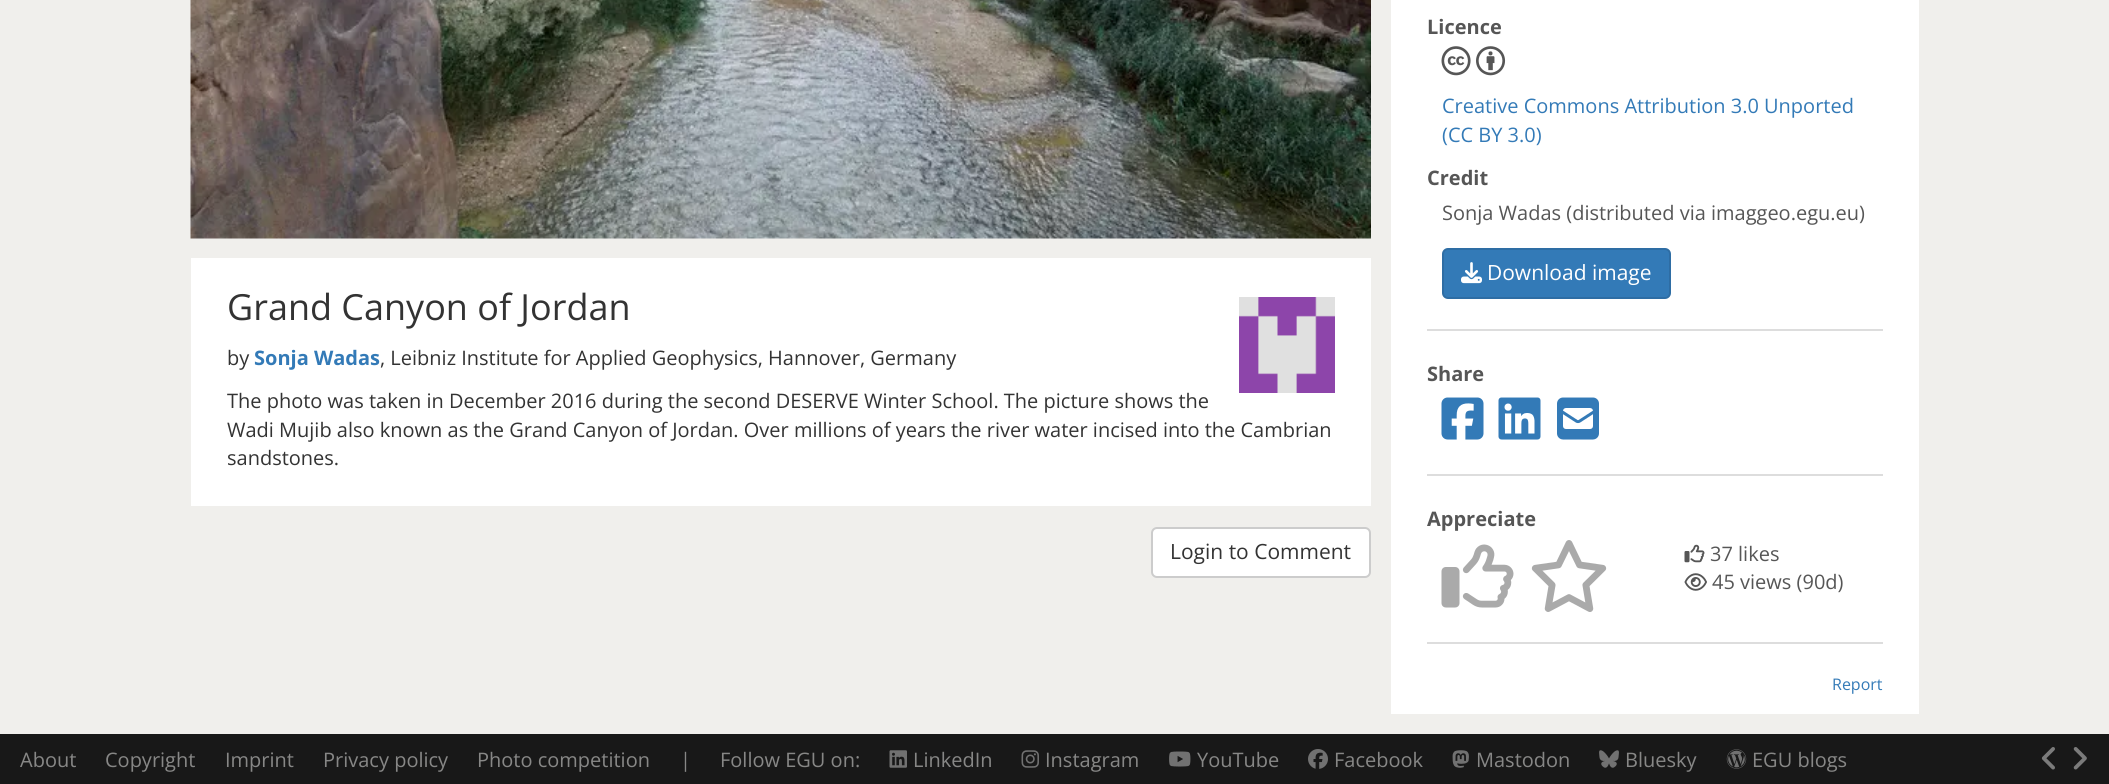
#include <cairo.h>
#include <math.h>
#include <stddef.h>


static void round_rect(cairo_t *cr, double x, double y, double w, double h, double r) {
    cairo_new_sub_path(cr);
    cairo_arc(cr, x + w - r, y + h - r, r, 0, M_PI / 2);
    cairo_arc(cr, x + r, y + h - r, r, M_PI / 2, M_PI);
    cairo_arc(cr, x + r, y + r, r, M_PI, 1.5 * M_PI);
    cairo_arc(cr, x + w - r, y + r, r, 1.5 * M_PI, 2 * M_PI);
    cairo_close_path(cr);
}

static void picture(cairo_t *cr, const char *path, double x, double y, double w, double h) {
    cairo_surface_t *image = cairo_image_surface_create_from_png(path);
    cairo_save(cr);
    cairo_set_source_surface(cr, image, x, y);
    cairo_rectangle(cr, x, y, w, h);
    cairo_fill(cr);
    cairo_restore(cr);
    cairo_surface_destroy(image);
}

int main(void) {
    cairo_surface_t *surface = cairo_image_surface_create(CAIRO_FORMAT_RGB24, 2109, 784);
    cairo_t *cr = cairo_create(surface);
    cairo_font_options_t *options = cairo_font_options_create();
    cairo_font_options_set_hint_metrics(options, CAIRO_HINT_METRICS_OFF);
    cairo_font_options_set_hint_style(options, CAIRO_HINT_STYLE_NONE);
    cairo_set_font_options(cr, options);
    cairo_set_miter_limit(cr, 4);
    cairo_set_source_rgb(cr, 0.941, 0.937, 0.922);
    cairo_paint(cr);
    picture(cr, "img1.png", 190, 0, 1181, 239);
    cairo_set_source_rgb(cr, 1, 1, 1);
    cairo_rectangle(cr, 191, 258, 1180, 248);
    cairo_fill(cr);
    cairo_select_font_face(cr, "Open Sans", CAIRO_FONT_SLANT_NORMAL, CAIRO_FONT_WEIGHT_NORMAL);
    cairo_set_font_size(cr, 36);
    cairo_set_source_rgb(cr, 0.2, 0.2, 0.2);
    cairo_move_to(cr, 227, 320);
    cairo_show_text(cr, "Grand Canyon of Jordan");
    picture(cr, "img2.png", 1239, 297, 96, 96);
    cairo_set_font_size(cr, 20);
    cairo_move_to(cr, 227, 365);
    cairo_show_text(cr, "by");
    cairo_select_font_face(cr, "Open Sans", CAIRO_FONT_SLANT_NORMAL, CAIRO_FONT_WEIGHT_BOLD);
    cairo_set_source_rgb(cr, 0.2, 0.478, 0.718);
    cairo_move_to(cr, 254, 365);
    cairo_show_text(cr, "Sonja Wadas");
    cairo_select_font_face(cr, "Open Sans", CAIRO_FONT_SLANT_NORMAL, CAIRO_FONT_WEIGHT_NORMAL);
    cairo_set_source_rgb(cr, 0.2, 0.2, 0.2);
    cairo_move_to(cr, 380, 365);
    cairo_show_text(cr, ", Leibniz Institute for Applied Geophysics, Hannover, Germany");
    cairo_move_to(cr, 227, 408);
    cairo_show_text(cr, "The photo was taken in December 2016 during the second DESERVE Winter School. The picture shows the");
    cairo_move_to(cr, 227, 437);
    cairo_show_text(cr, "Wadi Mujib also known as the Grand Canyon of Jordan. Over millions of years the river water incised into the Cambrian");
    cairo_move_to(cr, 227, 465);
    cairo_show_text(cr, "sandstones.");
    cairo_set_source_rgb(cr, 1, 1, 1);
    round_rect(cr, 1152, 528, 218, 49, 5);
    cairo_fill_preserve(cr);
    cairo_set_source_rgb(cr, 0.8, 0.8, 0.8);
    cairo_stroke(cr);
    cairo_set_font_size(cr, 21);
    cairo_set_source_rgb(cr, 0.2, 0.2, 0.2);
    cairo_move_to(cr, 1170, 559);
    cairo_show_text(cr, "Login to Comment");
    cairo_set_source_rgb(cr, 1, 1, 1);
    cairo_rectangle(cr, 1391, 0, 528, 714);
    cairo_fill(cr);
    cairo_select_font_face(cr, "Open Sans", CAIRO_FONT_SLANT_NORMAL, CAIRO_FONT_WEIGHT_BOLD);
    cairo_set_font_size(cr, 20);
    cairo_set_source_rgb(cr, 0.337, 0.337, 0.337);
    cairo_move_to(cr, 1427, 34);
    cairo_show_text(cr, "Licence");
    picture(cr, "img3.png", 1441, 46, 30, 30);
    picture(cr, "img4.png", 1476, 46, 30, 30);
    cairo_select_font_face(cr, "Open Sans", CAIRO_FONT_SLANT_NORMAL, CAIRO_FONT_WEIGHT_NORMAL);
    cairo_set_source_rgb(cr, 0.2, 0.478, 0.718);
    cairo_move_to(cr, 1442, 113);
    cairo_show_text(cr, "Creative Commons Attribution 3.0 Unported");
    cairo_move_to(cr, 1442, 142);
    cairo_show_text(cr, "(CC BY 3.0)");
    cairo_select_font_face(cr, "Open Sans", CAIRO_FONT_SLANT_NORMAL, CAIRO_FONT_WEIGHT_BOLD);
    cairo_set_source_rgb(cr, 0.337, 0.337, 0.337);
    cairo_move_to(cr, 1427, 185);
    cairo_show_text(cr, "Credit");
    cairo_select_font_face(cr, "Open Sans", CAIRO_FONT_SLANT_NORMAL, CAIRO_FONT_WEIGHT_NORMAL);
    cairo_move_to(cr, 1442, 220);
    cairo_show_text(cr, "Sonja Wadas (distributed via imaggeo.egu.eu)");
    cairo_set_source_rgb(cr, 0.2, 0.478, 0.718);
    round_rect(cr, 1443, 249, 227, 49, 5);
    cairo_fill_preserve(cr);
    cairo_set_source_rgb(cr, 0.18, 0.427, 0.643);
    cairo_stroke(cr);
    picture(cr, "img5.png", 1461, 262, 21, 22);
    cairo_set_font_size(cr, 21);
    cairo_set_source_rgb(cr, 1, 1, 1);
    cairo_move_to(cr, 1487, 280);
    cairo_show_text(cr, "Download image");
    cairo_set_source_rgb(cr, 0.867, 0.867, 0.867);
    cairo_rectangle(cr, 1427, 329, 456, 2);
    cairo_fill(cr);
    cairo_select_font_face(cr, "Open Sans", CAIRO_FONT_SLANT_NORMAL, CAIRO_FONT_WEIGHT_BOLD);
    cairo_set_font_size(cr, 20);
    cairo_set_source_rgb(cr, 0.337, 0.337, 0.337);
    cairo_move_to(cr, 1427, 381);
    cairo_show_text(cr, "Share");
    picture(cr, "img6.png", 1441, 397, 43, 43);
    picture(cr, "img7.png", 1498, 397, 43, 43);
    picture(cr, "img8.png", 1557, 397, 42, 43);
    cairo_set_source_rgb(cr, 0.867, 0.867, 0.867);
    cairo_rectangle(cr, 1427, 474, 456, 2);
    cairo_fill(cr);
    cairo_set_source_rgb(cr, 0.337, 0.337, 0.337);
    cairo_move_to(cr, 1427, 526);
    cairo_show_text(cr, "Appreciate");
    picture(cr, "img9.png", 1441, 544, 73, 64);
    picture(cr, "img10.png", 1531, 540, 76, 72);
    picture(cr, "img11.png", 1684, 544, 21, 19);
    cairo_select_font_face(cr, "Open Sans", CAIRO_FONT_SLANT_NORMAL, CAIRO_FONT_WEIGHT_NORMAL);
    cairo_move_to(cr, 1710, 561);
    cairo_show_text(cr, "37 likes");
    picture(cr, "img12.png", 1684, 573, 23, 18);
    cairo_move_to(cr, 1712, 589);
    cairo_show_text(cr, "45 views (90d)");
    cairo_set_source_rgb(cr, 0.867, 0.867, 0.867);
    cairo_rectangle(cr, 1427, 642, 456, 2);
    cairo_fill(cr);
    cairo_set_font_size(cr, 16);
    cairo_set_source_rgb(cr, 0.2, 0.478, 0.718);
    cairo_move_to(cr, 1832, 690);
    cairo_show_text(cr, "Report");
    cairo_set_source_rgb(cr, 0.094, 0.094, 0.094);
    cairo_rectangle(cr, 0, 734, 2109, 50);
    cairo_fill(cr);
    picture(cr, "img13.png", 2041, 747, 14, 23);
    picture(cr, "img14.png", 2073, 747, 14, 23);
    cairo_set_font_size(cr, 20);
    cairo_set_source_rgb(cr, 0.529, 0.529, 0.525);
    cairo_move_to(cr, 20, 767);
    cairo_show_text(cr, "About");
    cairo_move_to(cr, 105, 767);
    cairo_show_text(cr, "Copyright");
    cairo_move_to(cr, 225, 767);
    cairo_show_text(cr, "Imprint");
    cairo_move_to(cr, 323, 767);
    cairo_show_text(cr, "Privacy policy");
    cairo_move_to(cr, 477, 767);
    cairo_show_text(cr, "Photo competition");
    cairo_move_to(cr, 680, 767);
    cairo_show_text(cr, "|");
    cairo_move_to(cr, 720, 767);
    cairo_show_text(cr, "Follow EGU on:");
    picture(cr, "img15.png", 889, 750, 18, 18);
    cairo_move_to(cr, 913, 767);
    cairo_show_text(cr, "LinkedIn");
    picture(cr, "img16.png", 1021, 750, 18, 18);
    cairo_move_to(cr, 1045, 767);
    cairo_show_text(cr, "Instagram");
    picture(cr, "img17.png", 1169, 751, 22, 16);
    cairo_move_to(cr, 1197, 767);
    cairo_show_text(cr, "YouTube");
    picture(cr, "img18.png", 1308, 749, 20, 20);
    cairo_move_to(cr, 1334, 767);
    cairo_show_text(cr, "Facebook");
    picture(cr, "img19.png", 1452, 750, 17, 18);
    cairo_move_to(cr, 1476, 767);
    cairo_show_text(cr, "Mastodon");
    picture(cr, "img20.png", 1599, 750, 20, 18);
    cairo_move_to(cr, 1625, 767);
    cairo_show_text(cr, "Bluesky");
    picture(cr, "img21.png", 1726, 749, 21, 20);
    cairo_move_to(cr, 1752, 767);
    cairo_show_text(cr, "EGU blogs");
    cairo_surface_write_to_png(surface, "page.png");
    cairo_font_options_destroy(options);
    cairo_destroy(cr);
    cairo_surface_destroy(surface);
    return 0;
}
